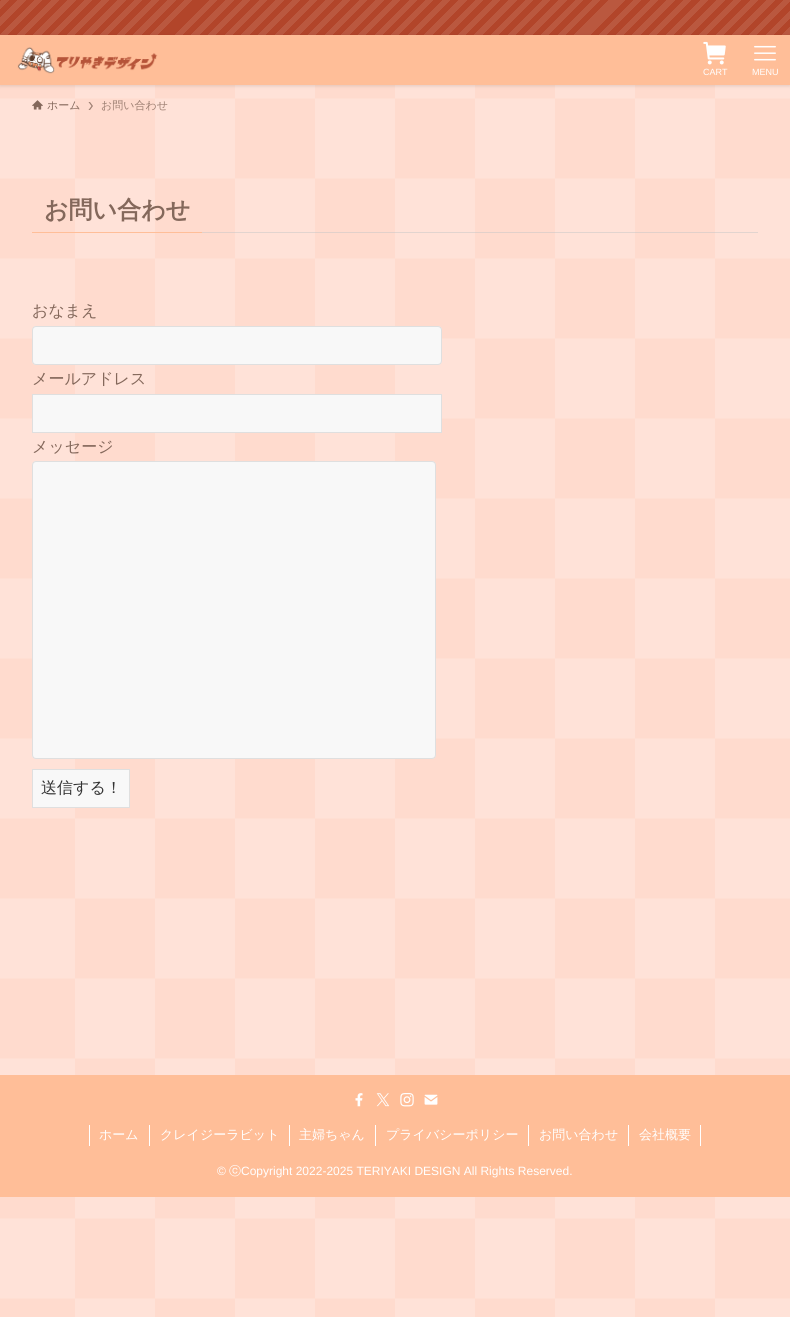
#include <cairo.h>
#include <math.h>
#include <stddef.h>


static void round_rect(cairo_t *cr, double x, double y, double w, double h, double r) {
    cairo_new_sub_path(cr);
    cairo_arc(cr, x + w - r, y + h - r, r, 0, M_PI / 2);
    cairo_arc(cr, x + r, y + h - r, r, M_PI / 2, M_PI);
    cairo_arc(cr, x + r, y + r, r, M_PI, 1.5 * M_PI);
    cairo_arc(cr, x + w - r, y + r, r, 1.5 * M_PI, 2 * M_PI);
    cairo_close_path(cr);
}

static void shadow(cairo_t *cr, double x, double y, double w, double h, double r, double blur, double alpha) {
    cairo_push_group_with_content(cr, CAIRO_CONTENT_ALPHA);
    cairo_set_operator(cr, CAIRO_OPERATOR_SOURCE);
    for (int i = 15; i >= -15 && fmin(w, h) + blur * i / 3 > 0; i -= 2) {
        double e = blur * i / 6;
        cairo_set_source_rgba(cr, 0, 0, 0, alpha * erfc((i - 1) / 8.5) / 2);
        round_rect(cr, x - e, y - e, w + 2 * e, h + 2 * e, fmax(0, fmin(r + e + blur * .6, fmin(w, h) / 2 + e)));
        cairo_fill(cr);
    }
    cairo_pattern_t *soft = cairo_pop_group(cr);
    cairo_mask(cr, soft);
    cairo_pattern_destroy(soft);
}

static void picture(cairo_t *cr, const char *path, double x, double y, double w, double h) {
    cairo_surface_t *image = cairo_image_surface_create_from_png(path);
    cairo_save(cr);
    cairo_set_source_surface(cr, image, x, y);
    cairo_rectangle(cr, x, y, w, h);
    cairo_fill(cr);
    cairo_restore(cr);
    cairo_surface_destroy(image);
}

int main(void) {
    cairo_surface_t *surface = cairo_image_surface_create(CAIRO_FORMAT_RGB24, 790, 1317);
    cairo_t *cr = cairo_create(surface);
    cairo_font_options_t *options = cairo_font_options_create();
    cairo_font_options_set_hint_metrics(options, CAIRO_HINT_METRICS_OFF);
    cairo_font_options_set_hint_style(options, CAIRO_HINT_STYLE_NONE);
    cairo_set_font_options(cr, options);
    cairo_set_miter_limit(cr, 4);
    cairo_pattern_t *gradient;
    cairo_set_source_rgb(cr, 1, 0.859, 0.808);
    cairo_paint(cr);
    gradient = cairo_pattern_create_linear(601, 224, 185, -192);
    cairo_pattern_add_color_stop_rgba(gradient, 0, 0.729, 0.345, 0.247, 1);
    cairo_pattern_add_color_stop_rgba(gradient, 0.01, 0.729, 0.345, 0.247, 1);
    cairo_pattern_add_color_stop_rgba(gradient, 0.01, 0.698, 0.271, 0.165, 1);
    cairo_pattern_add_color_stop_rgba(gradient, 0.02, 0.698, 0.271, 0.165, 1);
    cairo_pattern_add_color_stop_rgba(gradient, 0.02, 0.729, 0.345, 0.247, 1);
    cairo_pattern_add_color_stop_rgba(gradient, 0.03, 0.729, 0.345, 0.247, 1);
    cairo_pattern_add_color_stop_rgba(gradient, 0.03, 0.698, 0.271, 0.165, 1);
    cairo_pattern_add_color_stop_rgba(gradient, 0.04, 0.698, 0.271, 0.165, 1);
    cairo_pattern_add_color_stop_rgba(gradient, 0.04, 0.729, 0.345, 0.247, 1);
    cairo_pattern_add_color_stop_rgba(gradient, 0.05, 0.729, 0.345, 0.247, 1);
    cairo_pattern_add_color_stop_rgba(gradient, 0.05, 0.698, 0.271, 0.165, 1);
    cairo_pattern_add_color_stop_rgba(gradient, 0.06, 0.698, 0.271, 0.165, 1);
    cairo_pattern_add_color_stop_rgba(gradient, 0.06, 0.729, 0.345, 0.247, 1);
    cairo_pattern_add_color_stop_rgba(gradient, 0.07, 0.729, 0.345, 0.247, 1);
    cairo_pattern_add_color_stop_rgba(gradient, 0.07, 0.698, 0.271, 0.165, 1);
    cairo_pattern_add_color_stop_rgba(gradient, 0.08, 0.698, 0.271, 0.165, 1);
    cairo_pattern_add_color_stop_rgba(gradient, 0.08, 0.729, 0.345, 0.247, 1);
    cairo_pattern_add_color_stop_rgba(gradient, 0.09, 0.729, 0.345, 0.247, 1);
    cairo_pattern_add_color_stop_rgba(gradient, 0.09, 0.698, 0.271, 0.165, 1);
    cairo_pattern_add_color_stop_rgba(gradient, 0.1, 0.698, 0.271, 0.165, 1);
    cairo_pattern_add_color_stop_rgba(gradient, 0.1, 0.729, 0.345, 0.247, 1);
    cairo_pattern_add_color_stop_rgba(gradient, 0.11, 0.729, 0.345, 0.247, 1);
    cairo_pattern_add_color_stop_rgba(gradient, 0.11, 0.698, 0.271, 0.165, 1);
    cairo_pattern_add_color_stop_rgba(gradient, 0.12, 0.698, 0.271, 0.165, 1);
    cairo_pattern_add_color_stop_rgba(gradient, 0.12, 0.729, 0.345, 0.247, 1);
    cairo_pattern_add_color_stop_rgba(gradient, 0.13, 0.729, 0.345, 0.247, 1);
    cairo_pattern_add_color_stop_rgba(gradient, 0.13, 0.698, 0.271, 0.165, 1);
    cairo_pattern_add_color_stop_rgba(gradient, 0.14, 0.698, 0.271, 0.165, 1);
    cairo_pattern_add_color_stop_rgba(gradient, 0.14, 0.729, 0.345, 0.247, 1);
    cairo_pattern_add_color_stop_rgba(gradient, 0.15, 0.729, 0.345, 0.247, 1);
    cairo_pattern_add_color_stop_rgba(gradient, 0.15, 0.698, 0.271, 0.165, 1);
    cairo_pattern_add_color_stop_rgba(gradient, 0.16, 0.698, 0.271, 0.165, 1);
    cairo_pattern_add_color_stop_rgba(gradient, 0.16, 0.729, 0.345, 0.247, 1);
    cairo_pattern_add_color_stop_rgba(gradient, 0.17, 0.729, 0.345, 0.247, 1);
    cairo_pattern_add_color_stop_rgba(gradient, 0.17, 0.698, 0.271, 0.165, 1);
    cairo_pattern_add_color_stop_rgba(gradient, 0.18, 0.698, 0.271, 0.165, 1);
    cairo_pattern_add_color_stop_rgba(gradient, 0.18, 0.729, 0.345, 0.247, 1);
    cairo_pattern_add_color_stop_rgba(gradient, 0.19, 0.729, 0.345, 0.247, 1);
    cairo_pattern_add_color_stop_rgba(gradient, 0.19, 0.698, 0.271, 0.165, 1);
    cairo_pattern_add_color_stop_rgba(gradient, 0.2, 0.698, 0.271, 0.165, 1);
    cairo_pattern_add_color_stop_rgba(gradient, 0.2, 0.729, 0.345, 0.247, 1);
    cairo_pattern_add_color_stop_rgba(gradient, 0.21, 0.729, 0.345, 0.247, 1);
    cairo_pattern_add_color_stop_rgba(gradient, 0.21, 0.698, 0.271, 0.165, 1);
    cairo_pattern_add_color_stop_rgba(gradient, 0.22, 0.698, 0.271, 0.165, 1);
    cairo_pattern_add_color_stop_rgba(gradient, 0.22, 0.729, 0.345, 0.247, 1);
    cairo_pattern_add_color_stop_rgba(gradient, 0.23, 0.729, 0.345, 0.247, 1);
    cairo_pattern_add_color_stop_rgba(gradient, 0.23, 0.698, 0.271, 0.165, 1);
    cairo_pattern_add_color_stop_rgba(gradient, 0.24, 0.698, 0.271, 0.165, 1);
    cairo_pattern_add_color_stop_rgba(gradient, 0.24, 0.729, 0.345, 0.247, 1);
    cairo_pattern_add_color_stop_rgba(gradient, 0.26, 0.729, 0.345, 0.247, 1);
    cairo_pattern_add_color_stop_rgba(gradient, 0.26, 0.698, 0.271, 0.165, 1);
    cairo_pattern_add_color_stop_rgba(gradient, 0.27, 0.698, 0.271, 0.165, 1);
    cairo_pattern_add_color_stop_rgba(gradient, 0.27, 0.729, 0.345, 0.247, 1);
    cairo_pattern_add_color_stop_rgba(gradient, 0.28, 0.729, 0.345, 0.247, 1);
    cairo_pattern_add_color_stop_rgba(gradient, 0.28, 0.698, 0.271, 0.165, 1);
    cairo_pattern_add_color_stop_rgba(gradient, 0.29, 0.698, 0.271, 0.165, 1);
    cairo_pattern_add_color_stop_rgba(gradient, 0.29, 0.729, 0.345, 0.247, 1);
    cairo_pattern_add_color_stop_rgba(gradient, 0.3, 0.729, 0.345, 0.247, 1);
    cairo_pattern_add_color_stop_rgba(gradient, 0.3, 0.698, 0.271, 0.165, 1);
    cairo_pattern_add_color_stop_rgba(gradient, 0.31, 0.698, 0.271, 0.165, 1);
    cairo_pattern_add_color_stop_rgba(gradient, 0.31, 0.729, 0.345, 0.247, 1);
    cairo_pattern_add_color_stop_rgba(gradient, 0.32, 0.729, 0.345, 0.247, 1);
    cairo_pattern_add_color_stop_rgba(gradient, 0.32, 0.698, 0.271, 0.165, 1);
    cairo_pattern_add_color_stop_rgba(gradient, 0.33, 0.698, 0.271, 0.165, 1);
    cairo_pattern_add_color_stop_rgba(gradient, 0.33, 0.729, 0.345, 0.247, 1);
    cairo_pattern_add_color_stop_rgba(gradient, 0.34, 0.729, 0.345, 0.247, 1);
    cairo_pattern_add_color_stop_rgba(gradient, 0.34, 0.698, 0.271, 0.165, 1);
    cairo_pattern_add_color_stop_rgba(gradient, 0.35, 0.698, 0.271, 0.165, 1);
    cairo_pattern_add_color_stop_rgba(gradient, 0.35, 0.729, 0.345, 0.247, 1);
    cairo_pattern_add_color_stop_rgba(gradient, 0.36, 0.729, 0.345, 0.247, 1);
    cairo_pattern_add_color_stop_rgba(gradient, 0.36, 0.698, 0.271, 0.165, 1);
    cairo_pattern_add_color_stop_rgba(gradient, 0.37, 0.698, 0.271, 0.165, 1);
    cairo_pattern_add_color_stop_rgba(gradient, 0.37, 0.729, 0.345, 0.247, 1);
    cairo_pattern_add_color_stop_rgba(gradient, 0.38, 0.729, 0.345, 0.247, 1);
    cairo_pattern_add_color_stop_rgba(gradient, 0.38, 0.698, 0.271, 0.165, 1);
    cairo_pattern_add_color_stop_rgba(gradient, 0.39, 0.698, 0.271, 0.165, 1);
    cairo_pattern_add_color_stop_rgba(gradient, 0.39, 0.729, 0.345, 0.247, 1);
    cairo_pattern_add_color_stop_rgba(gradient, 0.4, 0.729, 0.345, 0.247, 1);
    cairo_pattern_add_color_stop_rgba(gradient, 0.4, 0.698, 0.271, 0.165, 1);
    cairo_pattern_add_color_stop_rgba(gradient, 0.41, 0.698, 0.271, 0.165, 1);
    cairo_pattern_add_color_stop_rgba(gradient, 0.41, 0.729, 0.345, 0.247, 1);
    cairo_pattern_add_color_stop_rgba(gradient, 0.42, 0.729, 0.345, 0.247, 1);
    cairo_pattern_add_color_stop_rgba(gradient, 0.42, 0.698, 0.271, 0.165, 1);
    cairo_pattern_add_color_stop_rgba(gradient, 0.43, 0.698, 0.271, 0.165, 1);
    cairo_pattern_add_color_stop_rgba(gradient, 0.43, 0.729, 0.345, 0.247, 1);
    cairo_pattern_add_color_stop_rgba(gradient, 0.44, 0.729, 0.345, 0.247, 1);
    cairo_pattern_add_color_stop_rgba(gradient, 0.44, 0.698, 0.271, 0.165, 1);
    cairo_pattern_add_color_stop_rgba(gradient, 0.45, 0.698, 0.271, 0.165, 1);
    cairo_pattern_add_color_stop_rgba(gradient, 0.45, 0.729, 0.345, 0.247, 1);
    cairo_pattern_add_color_stop_rgba(gradient, 0.46, 0.729, 0.345, 0.247, 1);
    cairo_pattern_add_color_stop_rgba(gradient, 0.46, 0.698, 0.271, 0.165, 1);
    cairo_pattern_add_color_stop_rgba(gradient, 0.47, 0.698, 0.271, 0.165, 1);
    cairo_pattern_add_color_stop_rgba(gradient, 0.47, 0.729, 0.345, 0.247, 1);
    cairo_pattern_add_color_stop_rgba(gradient, 0.48, 0.729, 0.345, 0.247, 1);
    cairo_pattern_add_color_stop_rgba(gradient, 0.48, 0.698, 0.271, 0.165, 1);
    cairo_pattern_add_color_stop_rgba(gradient, 0.49, 0.698, 0.271, 0.165, 1);
    cairo_pattern_add_color_stop_rgba(gradient, 0.49, 0.729, 0.345, 0.247, 1);
    cairo_pattern_add_color_stop_rgba(gradient, 0.5, 0.729, 0.345, 0.247, 1);
    cairo_pattern_add_color_stop_rgba(gradient, 0.5, 0.698, 0.271, 0.165, 1);
    cairo_pattern_add_color_stop_rgba(gradient, 0.51, 0.698, 0.271, 0.165, 1);
    cairo_pattern_add_color_stop_rgba(gradient, 0.51, 0.729, 0.345, 0.247, 1);
    cairo_pattern_add_color_stop_rgba(gradient, 0.52, 0.729, 0.345, 0.247, 1);
    cairo_pattern_add_color_stop_rgba(gradient, 0.52, 0.698, 0.271, 0.165, 1);
    cairo_pattern_add_color_stop_rgba(gradient, 0.53, 0.698, 0.271, 0.165, 1);
    cairo_pattern_add_color_stop_rgba(gradient, 0.53, 0.729, 0.345, 0.247, 1);
    cairo_pattern_add_color_stop_rgba(gradient, 0.54, 0.729, 0.345, 0.247, 1);
    cairo_pattern_add_color_stop_rgba(gradient, 0.54, 0.698, 0.271, 0.165, 1);
    cairo_pattern_add_color_stop_rgba(gradient, 0.55, 0.698, 0.271, 0.165, 1);
    cairo_pattern_add_color_stop_rgba(gradient, 0.55, 0.729, 0.345, 0.247, 1);
    cairo_pattern_add_color_stop_rgba(gradient, 0.56, 0.729, 0.345, 0.247, 1);
    cairo_pattern_add_color_stop_rgba(gradient, 0.56, 0.698, 0.271, 0.165, 1);
    cairo_pattern_add_color_stop_rgba(gradient, 0.57, 0.698, 0.271, 0.165, 1);
    cairo_pattern_add_color_stop_rgba(gradient, 0.57, 0.729, 0.345, 0.247, 1);
    cairo_pattern_add_color_stop_rgba(gradient, 0.58, 0.729, 0.345, 0.247, 1);
    cairo_pattern_add_color_stop_rgba(gradient, 0.58, 0.698, 0.271, 0.165, 1);
    cairo_pattern_add_color_stop_rgba(gradient, 0.59, 0.698, 0.271, 0.165, 1);
    cairo_pattern_add_color_stop_rgba(gradient, 0.59, 0.729, 0.345, 0.247, 1);
    cairo_pattern_add_color_stop_rgba(gradient, 0.6, 0.729, 0.345, 0.247, 1);
    cairo_pattern_add_color_stop_rgba(gradient, 0.6, 0.698, 0.271, 0.165, 1);
    cairo_pattern_add_color_stop_rgba(gradient, 0.61, 0.698, 0.271, 0.165, 1);
    cairo_pattern_add_color_stop_rgba(gradient, 0.61, 0.729, 0.345, 0.247, 1);
    cairo_pattern_add_color_stop_rgba(gradient, 0.62, 0.729, 0.345, 0.247, 1);
    cairo_pattern_add_color_stop_rgba(gradient, 0.62, 0.698, 0.271, 0.165, 1);
    cairo_pattern_add_color_stop_rgba(gradient, 0.63, 0.698, 0.271, 0.165, 1);
    cairo_pattern_add_color_stop_rgba(gradient, 0.63, 0.729, 0.345, 0.247, 1);
    cairo_pattern_add_color_stop_rgba(gradient, 0.64, 0.729, 0.345, 0.247, 1);
    cairo_pattern_add_color_stop_rgba(gradient, 0.64, 0.698, 0.271, 0.165, 1);
    cairo_pattern_add_color_stop_rgba(gradient, 0.65, 0.698, 0.271, 0.165, 1);
    cairo_pattern_add_color_stop_rgba(gradient, 0.65, 0.729, 0.345, 0.247, 1);
    cairo_pattern_add_color_stop_rgba(gradient, 0.66, 0.729, 0.345, 0.247, 1);
    cairo_pattern_add_color_stop_rgba(gradient, 0.66, 0.698, 0.271, 0.165, 1);
    cairo_pattern_add_color_stop_rgba(gradient, 0.67, 0.698, 0.271, 0.165, 1);
    cairo_pattern_add_color_stop_rgba(gradient, 0.67, 0.729, 0.345, 0.247, 1);
    cairo_pattern_add_color_stop_rgba(gradient, 0.68, 0.729, 0.345, 0.247, 1);
    cairo_pattern_add_color_stop_rgba(gradient, 0.68, 0.698, 0.271, 0.165, 1);
    cairo_pattern_add_color_stop_rgba(gradient, 0.69, 0.698, 0.271, 0.165, 1);
    cairo_pattern_add_color_stop_rgba(gradient, 0.69, 0.729, 0.345, 0.247, 1);
    cairo_pattern_add_color_stop_rgba(gradient, 0.7, 0.729, 0.345, 0.247, 1);
    cairo_pattern_add_color_stop_rgba(gradient, 0.7, 0.698, 0.271, 0.165, 1);
    cairo_pattern_add_color_stop_rgba(gradient, 0.71, 0.698, 0.271, 0.165, 1);
    cairo_pattern_add_color_stop_rgba(gradient, 0.71, 0.729, 0.345, 0.247, 1);
    cairo_pattern_add_color_stop_rgba(gradient, 0.72, 0.729, 0.345, 0.247, 1);
    cairo_pattern_add_color_stop_rgba(gradient, 0.72, 0.698, 0.271, 0.165, 1);
    cairo_pattern_add_color_stop_rgba(gradient, 0.73, 0.698, 0.271, 0.165, 1);
    cairo_pattern_add_color_stop_rgba(gradient, 0.73, 0.729, 0.345, 0.247, 1);
    cairo_pattern_add_color_stop_rgba(gradient, 0.74, 0.729, 0.345, 0.247, 1);
    cairo_pattern_add_color_stop_rgba(gradient, 0.74, 0.698, 0.271, 0.165, 1);
    cairo_pattern_add_color_stop_rgba(gradient, 0.76, 0.698, 0.271, 0.165, 1);
    cairo_pattern_add_color_stop_rgba(gradient, 0.76, 0.729, 0.345, 0.247, 1);
    cairo_pattern_add_color_stop_rgba(gradient, 0.77, 0.729, 0.345, 0.247, 1);
    cairo_pattern_add_color_stop_rgba(gradient, 0.77, 0.698, 0.271, 0.165, 1);
    cairo_pattern_add_color_stop_rgba(gradient, 0.78, 0.698, 0.271, 0.165, 1);
    cairo_pattern_add_color_stop_rgba(gradient, 0.78, 0.729, 0.345, 0.247, 1);
    cairo_pattern_add_color_stop_rgba(gradient, 0.79, 0.729, 0.345, 0.247, 1);
    cairo_pattern_add_color_stop_rgba(gradient, 0.79, 0.698, 0.271, 0.165, 1);
    cairo_pattern_add_color_stop_rgba(gradient, 0.8, 0.698, 0.271, 0.165, 1);
    cairo_pattern_add_color_stop_rgba(gradient, 0.8, 0.729, 0.345, 0.247, 1);
    cairo_pattern_add_color_stop_rgba(gradient, 0.81, 0.729, 0.345, 0.247, 1);
    cairo_pattern_add_color_stop_rgba(gradient, 0.81, 0.698, 0.271, 0.165, 1);
    cairo_pattern_add_color_stop_rgba(gradient, 0.82, 0.698, 0.271, 0.165, 1);
    cairo_pattern_add_color_stop_rgba(gradient, 0.82, 0.729, 0.345, 0.247, 1);
    cairo_pattern_add_color_stop_rgba(gradient, 0.83, 0.729, 0.345, 0.247, 1);
    cairo_pattern_add_color_stop_rgba(gradient, 0.83, 0.698, 0.271, 0.165, 1);
    cairo_pattern_add_color_stop_rgba(gradient, 0.84, 0.698, 0.271, 0.165, 1);
    cairo_pattern_add_color_stop_rgba(gradient, 0.84, 0.729, 0.345, 0.247, 1);
    cairo_pattern_add_color_stop_rgba(gradient, 0.85, 0.729, 0.345, 0.247, 1);
    cairo_pattern_add_color_stop_rgba(gradient, 0.85, 0.698, 0.271, 0.165, 1);
    cairo_pattern_add_color_stop_rgba(gradient, 0.86, 0.698, 0.271, 0.165, 1);
    cairo_pattern_add_color_stop_rgba(gradient, 0.86, 0.729, 0.345, 0.247, 1);
    cairo_pattern_add_color_stop_rgba(gradient, 0.87, 0.729, 0.345, 0.247, 1);
    cairo_pattern_add_color_stop_rgba(gradient, 0.87, 0.698, 0.271, 0.165, 1);
    cairo_pattern_add_color_stop_rgba(gradient, 0.88, 0.698, 0.271, 0.165, 1);
    cairo_pattern_add_color_stop_rgba(gradient, 0.88, 0.729, 0.345, 0.247, 1);
    cairo_pattern_add_color_stop_rgba(gradient, 0.89, 0.729, 0.345, 0.247, 1);
    cairo_pattern_add_color_stop_rgba(gradient, 0.89, 0.698, 0.271, 0.165, 1);
    cairo_pattern_add_color_stop_rgba(gradient, 0.9, 0.698, 0.271, 0.165, 1);
    cairo_pattern_add_color_stop_rgba(gradient, 0.9, 0.729, 0.345, 0.247, 1);
    cairo_pattern_add_color_stop_rgba(gradient, 0.91, 0.729, 0.345, 0.247, 1);
    cairo_pattern_add_color_stop_rgba(gradient, 0.91, 0.698, 0.271, 0.165, 1);
    cairo_pattern_add_color_stop_rgba(gradient, 0.92, 0.698, 0.271, 0.165, 1);
    cairo_pattern_add_color_stop_rgba(gradient, 0.92, 0.729, 0.345, 0.247, 1);
    cairo_pattern_add_color_stop_rgba(gradient, 0.93, 0.729, 0.345, 0.247, 1);
    cairo_pattern_add_color_stop_rgba(gradient, 0.93, 0.698, 0.271, 0.165, 1);
    cairo_pattern_add_color_stop_rgba(gradient, 0.94, 0.698, 0.271, 0.165, 1);
    cairo_pattern_add_color_stop_rgba(gradient, 0.94, 0.729, 0.345, 0.247, 1);
    cairo_pattern_add_color_stop_rgba(gradient, 0.95, 0.729, 0.345, 0.247, 1);
    cairo_pattern_add_color_stop_rgba(gradient, 0.95, 0.698, 0.271, 0.165, 1);
    cairo_pattern_add_color_stop_rgba(gradient, 0.96, 0.698, 0.271, 0.165, 1);
    cairo_pattern_add_color_stop_rgba(gradient, 0.96, 0.729, 0.345, 0.247, 1);
    cairo_pattern_add_color_stop_rgba(gradient, 0.97, 0.729, 0.345, 0.247, 1);
    cairo_pattern_add_color_stop_rgba(gradient, 0.97, 0.698, 0.271, 0.165, 1);
    cairo_pattern_add_color_stop_rgba(gradient, 0.98, 0.698, 0.271, 0.165, 1);
    cairo_pattern_add_color_stop_rgba(gradient, 0.98, 0.729, 0.345, 0.247, 1);
    cairo_pattern_add_color_stop_rgba(gradient, 0.99, 0.729, 0.345, 0.247, 1);
    cairo_pattern_add_color_stop_rgba(gradient, 0.99, 0.698, 0.271, 0.165, 1);
    cairo_pattern_add_color_stop_rgba(gradient, 1, 0.698, 0.271, 0.165, 1);
    cairo_set_source(cr, gradient);
    cairo_pattern_destroy(gradient);
    cairo_rectangle(cr, 0, 0, 790, 35);
    cairo_fill(cr);
    picture(cr, "img4.png", 0, 85, 790, 1232);
    cairo_set_source_rgb(cr, 0, 0, 0);
    shadow(cr, 0, 36, 790, 50, 0, 2, 0.12);
    cairo_set_source_rgb(cr, 1, 0.745, 0.596);
    cairo_rectangle(cr, 0, 35, 790, 50);
    cairo_fill(cr);
    picture(cr, "img1.png", 17, 47, 141, 27);
    picture(cr, "img2.png", 703, 41, 23, 24);
    cairo_select_font_face(cr, "Liberation Sans", CAIRO_FONT_SLANT_NORMAL, CAIRO_FONT_WEIGHT_NORMAL);
    cairo_set_font_size(cr, 9);
    cairo_set_source_rgb(cr, 1, 1, 1);
    cairo_move_to(cr, 703, 75);
    cairo_show_text(cr, "CART");
    picture(cr, "img3.png", 754, 45, 22, 16);
    cairo_move_to(cr, 752, 75);
    cairo_show_text(cr, "MENU");
    picture(cr, "img5.png", 32, 100, 11, 10);
    cairo_select_font_face(cr, "WenQuanYi Zen Hei Medium", CAIRO_FONT_SLANT_NORMAL, CAIRO_FONT_WEIGHT_NORMAL);
    cairo_set_font_size(cr, 11);
    cairo_set_source_rgb(cr, 0.518, 0.408, 0.357);
    cairo_move_to(cr, 47, 109);
    cairo_show_text(cr, "ホーム");
    cairo_set_source_rgb(cr, 0.616, 0.498, 0.447);
    cairo_new_path(cr);
    cairo_move_to(cr, 90, 102);
    cairo_line_to(cr, 88.5, 102);
    cairo_line_to(cr, 91.5, 106);
    cairo_line_to(cr, 88.5, 110);
    cairo_line_to(cr, 90, 110);
    cairo_line_to(cr, 93, 106);
    cairo_close_path(cr);
    cairo_fill(cr);
    cairo_move_to(cr, 101, 109);
    cairo_show_text(cr, "お問い合わせ");
    cairo_set_source_rgba(cr, 0.78, 0.78, 0.78, 0.5);
    cairo_rectangle(cr, 202, 232, 556, 1);
    cairo_fill(cr);
    cairo_set_source_rgb(cr, 1, 0.745, 0.596);
    cairo_rectangle(cr, 32, 232, 170, 1);
    cairo_fill(cr);
    cairo_select_font_face(cr, "WenQuanYi Zen Hei", CAIRO_FONT_SLANT_NORMAL, CAIRO_FONT_WEIGHT_BOLD);
    cairo_set_font_size(cr, 24);
    cairo_set_source_rgb(cr, 0.518, 0.408, 0.357);
    cairo_move_to(cr, 44, 218);
    cairo_show_text(cr, "お問い合わせ");
    cairo_select_font_face(cr, "WenQuanYi Zen Hei Medium", CAIRO_FONT_SLANT_NORMAL, CAIRO_FONT_WEIGHT_NORMAL);
    cairo_set_font_size(cr, 16);
    cairo_move_to(cr, 32, 316);
    cairo_show_text(cr, "おなまえ");
    cairo_set_source_rgb(cr, 0.969, 0.969, 0.969);
    round_rect(cr, 32, 326, 410, 39, 4);
    cairo_fill(cr);
    round_rect(cr, 32.5, 326.5, 409, 38, 3.5);
    cairo_set_source_rgba(cr, 0.78, 0.78, 0.78, 0.5);
    cairo_set_line_width(cr, 1);
    cairo_stroke(cr);
    cairo_set_source_rgb(cr, 0.518, 0.408, 0.357);
    cairo_move_to(cr, 32, 384);
    cairo_show_text(cr, "メールアドレス");
    cairo_set_source_rgb(cr, 0.969, 0.969, 0.969);
    cairo_rectangle(cr, 32.5, 394.5, 409, 38);
    cairo_fill_preserve(cr);
    cairo_set_source_rgb(cr, 0.875, 0.875, 0.875);
    cairo_stroke(cr);
    cairo_set_source_rgb(cr, 0.518, 0.408, 0.357);
    cairo_move_to(cr, 32, 452);
    cairo_show_text(cr, "メッセージ");
    cairo_set_source_rgb(cr, 0.969, 0.969, 0.969);
    round_rect(cr, 32, 461, 404, 298, 4);
    cairo_fill(cr);
    round_rect(cr, 32.5, 461.5, 403, 297, 3.5);
    cairo_set_source_rgba(cr, 0.78, 0.78, 0.78, 0.5);
    cairo_stroke(cr);
    cairo_set_source_rgb(cr, 0.969, 0.969, 0.969);
    cairo_rectangle(cr, 32.5, 769.5, 97, 38);
    cairo_fill_preserve(cr);
    cairo_set_source_rgb(cr, 0.875, 0.875, 0.875);
    cairo_stroke(cr);
    cairo_set_source_rgb(cr, 0.2, 0.2, 0.2);
    cairo_move_to(cr, 41, 793);
    cairo_show_text(cr, "送信する！");
    cairo_set_source_rgb(cr, 1, 0.745, 0.596);
    cairo_rectangle(cr, 0, 1075, 790, 122);
    cairo_fill(cr);
    picture(cr, "img6.png", 355, 1093, 8, 14);
    picture(cr, "img7.png", 376, 1093, 13, 14);
    picture(cr, "img8.png", 400, 1093, 14, 14);
    picture(cr, "img9.png", 424, 1094, 14, 11);
    cairo_set_source_rgb(cr, 1, 1, 1);
    cairo_rectangle(cr, 149, 1125, 1, 21);
    cairo_fill(cr);
    cairo_rectangle(cr, 89, 1125, 1, 21);
    cairo_fill(cr);
    cairo_set_font_size(cr, 13);
    cairo_move_to(cr, 99, 1139);
    cairo_show_text(cr, "ホーム");
    cairo_rectangle(cr, 289, 1125, 1, 21);
    cairo_fill(cr);
    cairo_move_to(cr, 160, 1139);
    cairo_show_text(cr, "クレイジーラビット");
    cairo_rectangle(cr, 375, 1125, 1, 21);
    cairo_fill(cr);
    cairo_move_to(cr, 299, 1139);
    cairo_show_text(cr, "主婦ちゃん");
    cairo_rectangle(cr, 528, 1125, 1, 21);
    cairo_fill(cr);
    cairo_move_to(cr, 386, 1139);
    cairo_show_text(cr, "プライバシーポリシー");
    cairo_rectangle(cr, 628, 1125, 1, 21);
    cairo_fill(cr);
    cairo_move_to(cr, 539, 1139);
    cairo_show_text(cr, "お問い合わせ");
    cairo_rectangle(cr, 700, 1125, 1, 21);
    cairo_fill(cr);
    cairo_move_to(cr, 639, 1139);
    cairo_show_text(cr, "会社概要");
    cairo_select_font_face(cr, "Liberation Sans", CAIRO_FONT_SLANT_NORMAL, CAIRO_FONT_WEIGHT_NORMAL);
    cairo_set_font_size(cr, 12);
    cairo_move_to(cr, 217, 1175);
    cairo_show_text(cr, "©");
    cairo_select_font_face(cr, "WenQuanYi Zen Hei Medium", CAIRO_FONT_SLANT_NORMAL, CAIRO_FONT_WEIGHT_NORMAL);
    cairo_move_to(cr, 229, 1175);
    cairo_show_text(cr, "ⓒ");
    cairo_select_font_face(cr, "Liberation Sans", CAIRO_FONT_SLANT_NORMAL, CAIRO_FONT_WEIGHT_NORMAL);
    cairo_move_to(cr, 241, 1175);
    cairo_show_text(cr, "Copyright 2022-2025 TERIYAKI DESIGN All Rights Reserved.");
    cairo_surface_write_to_png(surface, "page.png");
    cairo_font_options_destroy(options);
    cairo_destroy(cr);
    cairo_surface_destroy(surface);
    return 0;
}
